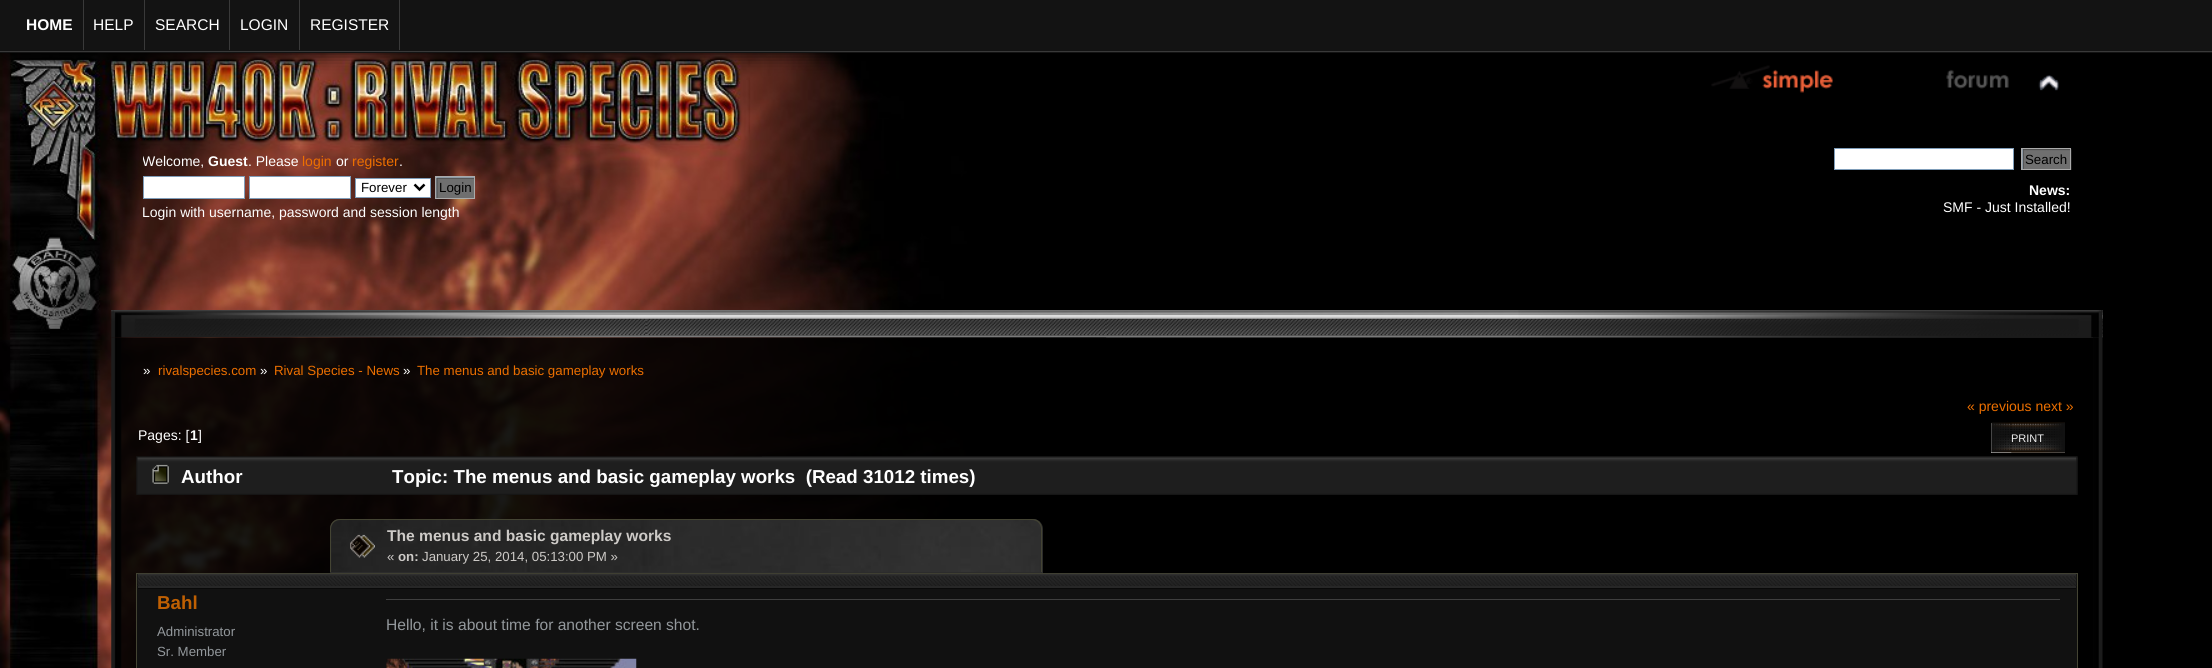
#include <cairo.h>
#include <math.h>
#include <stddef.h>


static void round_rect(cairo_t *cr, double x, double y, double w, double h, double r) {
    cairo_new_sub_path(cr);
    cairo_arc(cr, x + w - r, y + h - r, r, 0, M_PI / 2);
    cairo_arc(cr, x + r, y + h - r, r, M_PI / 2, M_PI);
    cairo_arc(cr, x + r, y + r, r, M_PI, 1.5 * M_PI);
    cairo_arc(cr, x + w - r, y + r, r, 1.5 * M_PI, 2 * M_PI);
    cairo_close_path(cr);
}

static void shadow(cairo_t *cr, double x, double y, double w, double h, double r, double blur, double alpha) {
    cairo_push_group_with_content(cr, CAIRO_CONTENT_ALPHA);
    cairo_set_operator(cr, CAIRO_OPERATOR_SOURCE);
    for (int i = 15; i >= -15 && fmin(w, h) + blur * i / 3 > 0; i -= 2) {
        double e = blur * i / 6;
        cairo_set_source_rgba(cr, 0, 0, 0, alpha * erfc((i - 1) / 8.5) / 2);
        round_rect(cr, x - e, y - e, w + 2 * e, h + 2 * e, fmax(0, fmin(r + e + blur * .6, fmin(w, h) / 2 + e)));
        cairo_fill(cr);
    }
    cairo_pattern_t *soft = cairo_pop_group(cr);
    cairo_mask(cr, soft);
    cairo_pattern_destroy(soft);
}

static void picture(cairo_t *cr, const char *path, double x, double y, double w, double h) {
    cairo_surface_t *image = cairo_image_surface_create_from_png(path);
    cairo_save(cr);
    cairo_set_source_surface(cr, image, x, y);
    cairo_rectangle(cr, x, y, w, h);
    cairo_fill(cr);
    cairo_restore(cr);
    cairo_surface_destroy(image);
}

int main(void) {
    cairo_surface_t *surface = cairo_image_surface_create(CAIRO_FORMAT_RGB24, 2212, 668);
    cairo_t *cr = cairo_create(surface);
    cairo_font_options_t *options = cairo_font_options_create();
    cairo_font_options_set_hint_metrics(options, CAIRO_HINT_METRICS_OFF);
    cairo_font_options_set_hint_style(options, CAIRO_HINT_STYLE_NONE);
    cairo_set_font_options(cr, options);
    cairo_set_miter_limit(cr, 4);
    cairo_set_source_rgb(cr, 0, 0, 0);
    cairo_paint(cr);
    picture(cr, "img1.png", 0, 53, 967, 615);
    picture(cr, "img2.png", 1711, 65, 298, 28);
    picture(cr, "img3.png", 2038, 75, 21, 16);
    shadow(cr, 6, 0, 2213, 53, 0, 9.5, 1);
    cairo_set_source_rgb(cr, 0.075, 0.075, 0.075);
    cairo_rectangle(cr, 0, 0, 2212, 53);
    cairo_fill(cr);
    cairo_set_source_rgb(cr, 0.224, 0.224, 0.224);
    cairo_rectangle(cr, 0, 51, 2212, 1);
    cairo_fill(cr);
    cairo_rectangle(cr, 83, 0, 1, 50);
    cairo_fill(cr);
    cairo_select_font_face(cr, "Liberation Sans", CAIRO_FONT_SLANT_NORMAL, CAIRO_FONT_WEIGHT_BOLD);
    cairo_set_font_size(cr, 15.5);
    cairo_set_source_rgb(cr, 1, 1, 1);
    cairo_move_to(cr, 26, 30);
    cairo_show_text(cr, "HOME");
    cairo_set_source_rgb(cr, 0.224, 0.224, 0.224);
    cairo_rectangle(cr, 144, 0, 1, 50);
    cairo_fill(cr);
    cairo_select_font_face(cr, "Liberation Sans", CAIRO_FONT_SLANT_NORMAL, CAIRO_FONT_WEIGHT_NORMAL);
    cairo_set_source_rgb(cr, 1, 1, 1);
    cairo_move_to(cr, 93, 30);
    cairo_show_text(cr, "HELP");
    cairo_set_source_rgb(cr, 0.224, 0.224, 0.224);
    cairo_rectangle(cr, 229, 0, 1, 50);
    cairo_fill(cr);
    cairo_set_source_rgb(cr, 1, 1, 1);
    cairo_move_to(cr, 155, 30);
    cairo_show_text(cr, "SEARCH");
    cairo_set_source_rgb(cr, 0.224, 0.224, 0.224);
    cairo_rectangle(cr, 299, 0, 1, 50);
    cairo_fill(cr);
    cairo_set_source_rgb(cr, 1, 1, 1);
    cairo_move_to(cr, 240, 30);
    cairo_show_text(cr, "LOGIN");
    cairo_set_source_rgb(cr, 0.224, 0.224, 0.224);
    cairo_rectangle(cr, 399, 0, 1, 50);
    cairo_fill(cr);
    cairo_set_source_rgb(cr, 1, 1, 1);
    cairo_move_to(cr, 310, 30);
    cairo_show_text(cr, "REGISTER");
    cairo_save(cr);
    cairo_rectangle(cr, 143, 148, 963, 78);
    cairo_clip(cr);
    cairo_set_font_size(cr, 14);
    cairo_move_to(cr, 142, 166);
    cairo_show_text(cr, "Welcome,");
    cairo_restore(cr);
    cairo_select_font_face(cr, "Liberation Sans", CAIRO_FONT_SLANT_NORMAL, CAIRO_FONT_WEIGHT_BOLD);
    cairo_set_font_size(cr, 14);
    cairo_move_to(cr, 208, 166);
    cairo_show_text(cr, "Guest");
    cairo_select_font_face(cr, "Liberation Sans", CAIRO_FONT_SLANT_NORMAL, CAIRO_FONT_WEIGHT_NORMAL);
    cairo_move_to(cr, 248, 166);
    cairo_show_text(cr, ". Please");
    cairo_set_source_rgb(cr, 0.925, 0.435, 0);
    cairo_move_to(cr, 302, 166);
    cairo_show_text(cr, "login");
    cairo_set_source_rgb(cr, 1, 1, 1);
    cairo_move_to(cr, 336, 166);
    cairo_show_text(cr, "or");
    cairo_set_source_rgb(cr, 0.925, 0.435, 0);
    cairo_move_to(cr, 352, 166);
    cairo_show_text(cr, "register");
    cairo_set_source_rgb(cr, 1, 1, 1);
    cairo_move_to(cr, 399, 166);
    cairo_show_text(cr, ".");
    cairo_rectangle(cr, 143.5, 176.5, 101, 22);
    cairo_fill_preserve(cr);
    cairo_set_source_rgb(cr, 0.498, 0.616, 0.725);
    cairo_set_line_width(cr, 1);
    cairo_stroke(cr);
    cairo_set_source_rgb(cr, 1, 1, 1);
    cairo_rectangle(cr, 249.5, 176.5, 101, 22);
    cairo_fill_preserve(cr);
    cairo_set_source_rgb(cr, 0.498, 0.616, 0.725);
    cairo_stroke(cr);
    cairo_set_source_rgb(cr, 1, 1, 1);
    cairo_rectangle(cr, 355.5, 178.5, 75, 19);
    cairo_fill_preserve(cr);
    cairo_set_source_rgb(cr, 0.498, 0.616, 0.725);
    cairo_stroke(cr);
    cairo_new_path(cr);
    cairo_move_to(cr, 414.5, 184.5);
    cairo_line_to(cr, 419.5, 189.5);
    cairo_line_to(cr, 424.5, 184.5);
    cairo_set_source_rgb(cr, 0, 0, 0);
    cairo_set_line_width(cr, 2.5);
    cairo_stroke(cr);
    cairo_set_font_size(cr, 13.3);
    cairo_move_to(cr, 361, 192);
    cairo_show_text(cr, "Forever");
    cairo_set_source_rgb(cr, 0.804, 0.906, 1);
    cairo_rectangle(cr, 436, 177, 38, 21);
    cairo_fill(cr);
    picture(cr, "img4.png", 436, 177, 38, 21);
    cairo_rectangle(cr, 435.5, 176.5, 39, 22);
    cairo_set_source_rgb(cr, 0.667, 0.667, 0.667);
    cairo_set_line_width(cr, 1);
    cairo_stroke(cr);
    cairo_set_source_rgb(cr, 0, 0, 0);
    cairo_move_to(cr, 439, 192);
    cairo_show_text(cr, "Login");
    cairo_set_font_size(cr, 14);
    cairo_set_source_rgb(cr, 1, 1, 1);
    cairo_move_to(cr, 142, 217);
    cairo_show_text(cr, "Login with username, password and session length");
    cairo_rectangle(cr, 1834.5, 148.5, 179, 21);
    cairo_fill_preserve(cr);
    cairo_set_source_rgb(cr, 0.498, 0.616, 0.725);
    cairo_stroke(cr);
    cairo_set_source_rgb(cr, 0.804, 0.906, 1);
    cairo_rectangle(cr, 2022, 149, 1, 20);
    cairo_fill(cr);
    picture(cr, "img5.png", 2022, 148, 50, 22);
    cairo_rectangle(cr, 2021.5, 148.5, 49, 21);
    cairo_set_source_rgb(cr, 0.667, 0.667, 0.667);
    cairo_stroke(cr);
    cairo_set_font_size(cr, 13.3);
    cairo_set_source_rgb(cr, 0, 0, 0);
    cairo_move_to(cr, 2025, 164);
    cairo_show_text(cr, "Search");
    cairo_select_font_face(cr, "Liberation Sans", CAIRO_FONT_SLANT_NORMAL, CAIRO_FONT_WEIGHT_BOLD);
    cairo_set_font_size(cr, 14);
    cairo_set_source_rgb(cr, 1, 1, 1);
    cairo_move_to(cr, 2029, 195);
    cairo_show_text(cr, "News:");
    cairo_select_font_face(cr, "Liberation Sans", CAIRO_FONT_SLANT_NORMAL, CAIRO_FONT_WEIGHT_NORMAL);
    cairo_move_to(cr, 1943, 212);
    cairo_show_text(cr, "SMF - Just Installed!");
    picture(cr, "img6.png", 111, 310, 1992, 28);
    picture(cr, "img7.png", 1106, 310, 997, 28);
    picture(cr, "img8.png", 111, 337, 1992, 331);
    picture(cr, "img9.png", 2093, 337, 10, 331);
    cairo_set_font_size(cr, 13.3);
    cairo_move_to(cr, 143, 375);
    cairo_show_text(cr, "»");
    cairo_set_source_rgb(cr, 0.925, 0.435, 0);
    cairo_move_to(cr, 158, 375);
    cairo_show_text(cr, "rivalspecies.com");
    cairo_set_source_rgb(cr, 1, 1, 1);
    cairo_move_to(cr, 260, 375);
    cairo_show_text(cr, "»");
    cairo_set_source_rgb(cr, 0.925, 0.435, 0);
    cairo_move_to(cr, 274, 375);
    cairo_show_text(cr, "Rival Species - News");
    cairo_set_source_rgb(cr, 1, 1, 1);
    cairo_move_to(cr, 403, 375);
    cairo_show_text(cr, "»");
    cairo_set_source_rgb(cr, 0.925, 0.435, 0);
    cairo_move_to(cr, 417, 375);
    cairo_show_text(cr, "The menus and basic gameplay works");
    cairo_set_font_size(cr, 14);
    cairo_move_to(cr, 1967, 411);
    cairo_show_text(cr, "« previous next »");
    cairo_set_source_rgb(cr, 1, 1, 1);
    cairo_move_to(cr, 138, 440);
    cairo_show_text(cr, "Pages: [");
    cairo_select_font_face(cr, "Liberation Sans", CAIRO_FONT_SLANT_NORMAL, CAIRO_FONT_WEIGHT_BOLD);
    cairo_move_to(cr, 190, 440);
    cairo_show_text(cr, "1");
    cairo_select_font_face(cr, "Liberation Sans", CAIRO_FONT_SLANT_NORMAL, CAIRO_FONT_WEIGHT_NORMAL);
    cairo_move_to(cr, 198, 440);
    cairo_show_text(cr, "]");
    cairo_set_source_rgb(cr, 0.91, 0.91, 0.91);
    cairo_rectangle(cr, 1991, 423, 74, 30);
    cairo_fill(cr);
    picture(cr, "img10.png", 1991, 422, 74, 31);
    picture(cr, "img11.png", 2011, 422, 54, 31);
    cairo_set_font_size(cr, 11);
    cairo_set_source_rgb(cr, 0.933, 0.933, 0.933);
    cairo_move_to(cr, 2011, 442);
    cairo_show_text(cr, "PRINT");
    picture(cr, "img12.png", 136, 456, 1942, 39);
    picture(cr, "img13.png", 762, 456, 1316, 39);
    picture(cr, "img14.png", 152, 464, 17, 20);
    cairo_select_font_face(cr, "Liberation Sans", CAIRO_FONT_SLANT_NORMAL, CAIRO_FONT_WEIGHT_BOLD);
    cairo_set_font_size(cr, 18.75);
    cairo_set_source_rgb(cr, 1, 1, 1);
    cairo_move_to(cr, 181, 483);
    cairo_show_text(cr, "Author");
    cairo_move_to(cr, 392, 483);
    cairo_show_text(cr, "Topic: The menus and basic gameplay works  (Read 31012 times)");
    cairo_set_source_rgb(cr, 0.173, 0.173, 0.173);
    cairo_new_path(cr);
    cairo_move_to(cr, 340, 519);
    cairo_line_to(cr, 1033, 519);
    cairo_curve_to(cr, 1038.5, 519, 1043, 523.5, 1043, 529);
    cairo_line_to(cr, 1043, 573);
    cairo_line_to(cr, 330, 573);
    cairo_line_to(cr, 330, 529);
    cairo_curve_to(cr, 330, 523.5, 334.5, 519, 340, 519);
    cairo_close_path(cr);
    cairo_fill(cr);
    picture(cr, "img15.png", 331, 519, 709, 53);
    cairo_set_source_rgb(cr, 0.267, 0.267, 0.2);
    cairo_set_fill_rule(cr, CAIRO_FILL_RULE_EVEN_ODD);
    cairo_new_path(cr);
    cairo_move_to(cr, 340, 519);
    cairo_line_to(cr, 1032, 519);
    cairo_curve_to(cr, 1038, 519, 1042, 523, 1042, 529);
    cairo_line_to(cr, 1042, 572);
    cairo_line_to(cr, 330, 572);
    cairo_line_to(cr, 330, 529);
    cairo_curve_to(cr, 330, 523, 334, 519, 340, 519);
    cairo_close_path(cr);
    cairo_move_to(cr, 340, 520);
    cairo_line_to(cr, 1032, 520);
    cairo_curve_to(cr, 1037, 520, 1041, 524, 1041, 529);
    cairo_line_to(cr, 1041, 572);
    cairo_line_to(cr, 331, 572);
    cairo_line_to(cr, 331, 529);
    cairo_curve_to(cr, 331, 524, 335, 520, 340, 520);
    cairo_close_path(cr);
    cairo_fill(cr);
    picture(cr, "img16.png", 350, 534, 25, 24);
    cairo_set_font_size(cr, 15.6);
    cairo_set_source_rgb(cr, 0.804, 0.792, 0.78);
    cairo_move_to(cr, 387, 541);
    cairo_show_text(cr, "The menus and basic gameplay works");
    cairo_select_font_face(cr, "Liberation Sans", CAIRO_FONT_SLANT_NORMAL, CAIRO_FONT_WEIGHT_NORMAL);
    cairo_set_font_size(cr, 13.25);
    cairo_move_to(cr, 387, 561);
    cairo_show_text(cr, "«");
    cairo_select_font_face(cr, "Liberation Sans", CAIRO_FONT_SLANT_NORMAL, CAIRO_FONT_WEIGHT_BOLD);
    cairo_move_to(cr, 398, 561);
    cairo_show_text(cr, "on:");
    cairo_select_font_face(cr, "Liberation Sans", CAIRO_FONT_SLANT_NORMAL, CAIRO_FONT_WEIGHT_NORMAL);
    cairo_move_to(cr, 422, 561);
    cairo_show_text(cr, "January 25, 2014, 05:13:00 PM »");
    cairo_set_source_rgb(cr, 0.067, 0.067, 0.067);
    cairo_rectangle(cr, 137, 585, 1940, 83);
    cairo_fill(cr);
    picture(cr, "img17.png", 137, 574, 1940, 11);
    cairo_rectangle(cr, 136.5, 573.5, 1941, 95);
    cairo_set_source_rgb(cr, 0.267, 0.267, 0.2);
    cairo_stroke(cr);
    cairo_set_source_rgb(cr, 0.153, 0.153, 0.153);
    cairo_rectangle(cr, 138, 586, 1938, 2);
    cairo_fill(cr);
    picture(cr, "img18.png", 137, 573, 1940, 13);
    cairo_set_source_rgb(cr, 0.039, 0.039, 0.039);
    cairo_rectangle(cr, 138, 588, 1938, 1);
    cairo_fill(cr);
    picture(cr, "img19.png", 163, 574, 1914, 12);
    cairo_select_font_face(cr, "Liberation Sans", CAIRO_FONT_SLANT_NORMAL, CAIRO_FONT_WEIGHT_BOLD);
    cairo_set_font_size(cr, 18.75);
    cairo_set_source_rgb(cr, 0.753, 0.376, 0.008);
    cairo_move_to(cr, 157, 609);
    cairo_show_text(cr, "Bahl");
    cairo_select_font_face(cr, "Liberation Sans", CAIRO_FONT_SLANT_NORMAL, CAIRO_FONT_WEIGHT_NORMAL);
    cairo_set_font_size(cr, 13.25);
    cairo_set_source_rgb(cr, 0.576, 0.596, 0.612);
    cairo_move_to(cr, 157, 636);
    cairo_show_text(cr, "Administrator");
    cairo_move_to(cr, 157, 656);
    cairo_show_text(cr, "Sr. Member");
    cairo_set_source_rgb(cr, 0.247, 0.247, 0.247);
    cairo_rectangle(cr, 386, 599, 1674, 1);
    cairo_fill(cr);
    cairo_set_font_size(cr, 15.6);
    cairo_set_source_rgb(cr, 0.576, 0.596, 0.612);
    cairo_move_to(cr, 386, 630);
    cairo_show_text(cr, "Hello, it is about time for another screen shot.");
    picture(cr, "img20.png", 386, 658, 251, 10);
    cairo_surface_write_to_png(surface, "page.png");
    cairo_font_options_destroy(options);
    cairo_destroy(cr);
    cairo_surface_destroy(surface);
    return 0;
}
